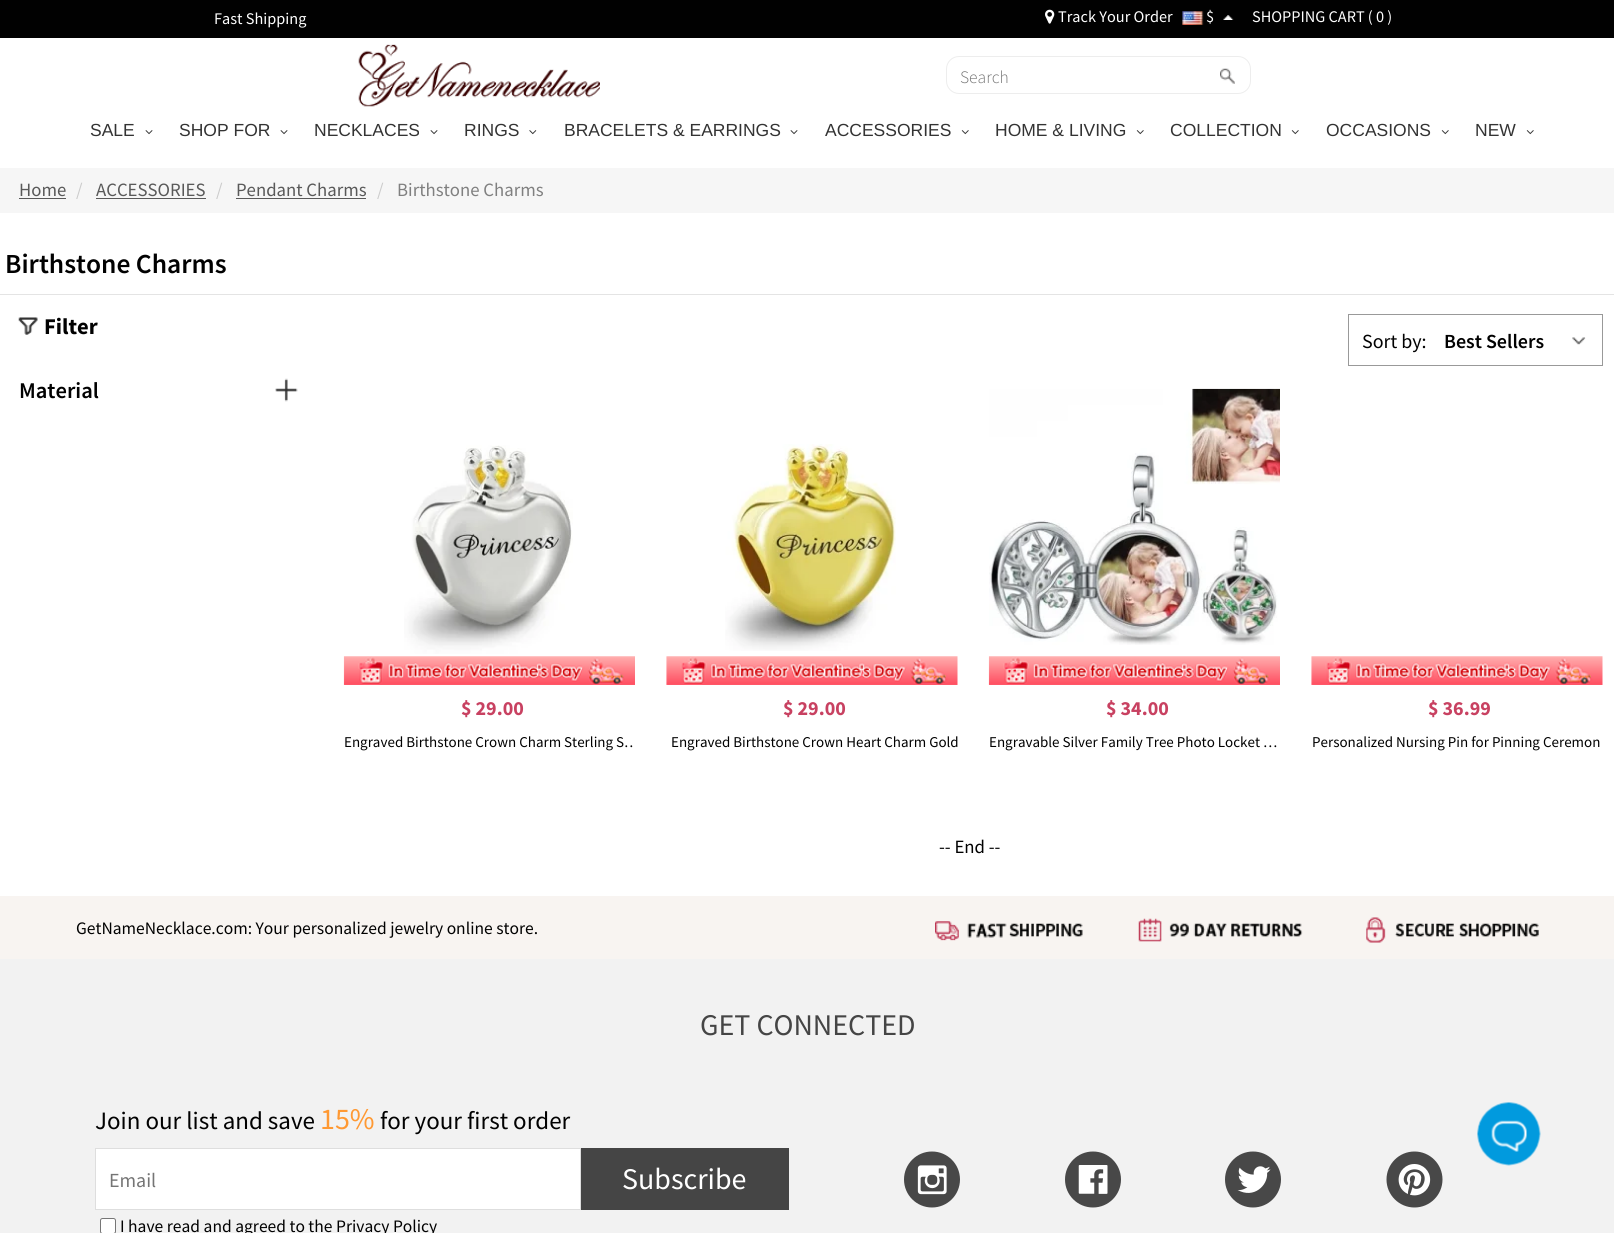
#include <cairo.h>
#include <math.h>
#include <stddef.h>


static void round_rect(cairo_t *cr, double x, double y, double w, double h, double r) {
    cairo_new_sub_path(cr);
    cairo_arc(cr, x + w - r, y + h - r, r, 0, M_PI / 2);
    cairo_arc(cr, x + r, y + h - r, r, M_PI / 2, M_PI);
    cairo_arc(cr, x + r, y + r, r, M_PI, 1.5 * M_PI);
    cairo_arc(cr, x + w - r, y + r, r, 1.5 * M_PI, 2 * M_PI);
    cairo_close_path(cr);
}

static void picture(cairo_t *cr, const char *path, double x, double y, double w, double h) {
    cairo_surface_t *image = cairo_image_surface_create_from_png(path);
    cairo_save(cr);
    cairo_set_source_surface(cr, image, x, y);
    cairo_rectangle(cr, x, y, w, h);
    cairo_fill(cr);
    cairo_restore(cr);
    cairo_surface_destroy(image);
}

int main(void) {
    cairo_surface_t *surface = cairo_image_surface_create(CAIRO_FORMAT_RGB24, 1614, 1233);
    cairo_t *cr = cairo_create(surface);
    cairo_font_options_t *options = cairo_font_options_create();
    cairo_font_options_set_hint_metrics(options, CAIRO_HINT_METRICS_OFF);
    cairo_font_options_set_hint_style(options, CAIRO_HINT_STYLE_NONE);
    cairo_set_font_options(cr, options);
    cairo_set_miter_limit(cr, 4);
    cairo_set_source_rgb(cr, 1, 1, 1);
    cairo_paint(cr);
    cairo_set_source_rgb(cr, 0.004, 0.004, 0.004);
    cairo_rectangle(cr, 0, 0, 1614, 38);
    cairo_fill(cr);
    cairo_select_font_face(cr, "Source Sans Pro", CAIRO_FONT_SLANT_NORMAL, CAIRO_FONT_WEIGHT_NORMAL);
    cairo_set_font_size(cr, 16.25);
    cairo_set_source_rgb(cr, 1, 1, 1);
    cairo_move_to(cr, 214, 24);
    cairo_show_text(cr, "Fast Shipping");
    picture(cr, "img1.png", 1045, 9, 10, 15);
    cairo_move_to(cr, 1058, 22);
    cairo_show_text(cr, "Track Your Order");
    picture(cr, "img2.png", 1182, 11, 22, 14);
    cairo_move_to(cr, 1206, 22);
    cairo_show_text(cr, "$");
    picture(cr, "img3.png", 1223, 15, 11, 5);
    cairo_move_to(cr, 1252, 22);
    cairo_show_text(cr, "SHOPPING CART ( 0 )");
    picture(cr, "img4.png", 358, 44, 242, 63);
    round_rect(cr, 946.5, 56.5, 304, 37, 12.5);
    cairo_set_source_rgb(cr, 0.929, 0.929, 0.929);
    cairo_set_line_width(cr, 1);
    cairo_stroke(cr);
    cairo_select_font_face(cr, "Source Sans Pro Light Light", CAIRO_FONT_SLANT_NORMAL, CAIRO_FONT_WEIGHT_NORMAL);
    cairo_set_font_size(cr, 17.5);
    cairo_set_source_rgb(cr, 0.459, 0.459, 0.459);
    cairo_move_to(cr, 960, 83);
    cairo_show_text(cr, "Search");
    picture(cr, "img5.png", 1220, 68, 15, 16);
    cairo_select_font_face(cr, "Liberation Sans", CAIRO_FONT_SLANT_NORMAL, CAIRO_FONT_WEIGHT_NORMAL);
    cairo_set_source_rgb(cr, 0.2, 0.2, 0.2);
    cairo_move_to(cr, 90, 136);
    cairo_show_text(cr, "SALE");
    picture(cr, "img6.png", 145, 130, 8, 5);
    cairo_move_to(cr, 179, 136);
    cairo_show_text(cr, "SHOP FOR");
    picture(cr, "img6.png", 280, 130, 8, 5);
    cairo_move_to(cr, 314, 136);
    cairo_show_text(cr, "NECKLACES");
    picture(cr, "img6.png", 430, 130, 8, 5);
    cairo_move_to(cr, 464, 136);
    cairo_show_text(cr, "RINGS");
    picture(cr, "img7.png", 529, 130, 8, 5);
    cairo_move_to(cr, 564, 136);
    cairo_show_text(cr, "BRACELETS & EARRINGS");
    picture(cr, "img6.png", 790, 130, 8, 5);
    cairo_move_to(cr, 825, 136);
    cairo_show_text(cr, "ACCESSORIES");
    picture(cr, "img8.png", 961, 130, 8, 5);
    cairo_move_to(cr, 995, 136);
    cairo_show_text(cr, "HOME & LIVING");
    picture(cr, "img8.png", 1136, 130, 8, 5);
    cairo_move_to(cr, 1170, 136);
    cairo_show_text(cr, "COLLECTION");
    picture(cr, "img8.png", 1291, 130, 8, 5);
    cairo_move_to(cr, 1326, 136);
    cairo_show_text(cr, "OCCASIONS");
    picture(cr, "img8.png", 1441, 130, 8, 5);
    cairo_move_to(cr, 1475, 136);
    cairo_show_text(cr, "NEW");
    picture(cr, "img8.png", 1526, 130, 8, 5);
    cairo_set_source_rgb(cr, 0.961, 0.961, 0.961);
    cairo_rectangle(cr, 0, 168, 1614, 45);
    cairo_fill(cr);
    cairo_select_font_face(cr, "Source Sans Pro", CAIRO_FONT_SLANT_NORMAL, CAIRO_FONT_WEIGHT_NORMAL);
    cairo_set_font_size(cr, 18.75);
    cairo_set_source_rgb(cr, 0.349, 0.349, 0.349);
    cairo_move_to(cr, 19, 196);
    cairo_show_text(cr, "Home");
    cairo_rectangle(cr, 19, 198, 47, 1);
    cairo_fill(cr);
    cairo_set_source_rgb(cr, 0.8, 0.8, 0.8);
    cairo_move_to(cr, 76, 196);
    cairo_show_text(cr, "/");
    cairo_set_source_rgb(cr, 0.349, 0.349, 0.349);
    cairo_move_to(cr, 96, 196);
    cairo_show_text(cr, "ACCESSORIES");
    cairo_rectangle(cr, 96, 198, 110, 1);
    cairo_fill(cr);
    cairo_set_source_rgb(cr, 0.8, 0.8, 0.8);
    cairo_move_to(cr, 216, 196);
    cairo_show_text(cr, "/");
    cairo_set_source_rgb(cr, 0.349, 0.349, 0.349);
    cairo_move_to(cr, 236, 196);
    cairo_show_text(cr, "Pendant Charms");
    cairo_rectangle(cr, 236, 198, 130, 1);
    cairo_fill(cr);
    cairo_set_source_rgb(cr, 0.8, 0.8, 0.8);
    cairo_move_to(cr, 377, 196);
    cairo_show_text(cr, "/");
    cairo_set_source_rgb(cr, 0.502, 0.502, 0.502);
    cairo_move_to(cr, 397, 196);
    cairo_show_text(cr, "Birthstone Charms");
    cairo_set_source_rgb(cr, 0.894, 0.894, 0.894);
    cairo_rectangle(cr, 0, 294, 1614, 1);
    cairo_fill(cr);
    cairo_select_font_face(cr, "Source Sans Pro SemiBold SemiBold", CAIRO_FONT_SLANT_NORMAL, CAIRO_FONT_WEIGHT_NORMAL);
    cairo_set_font_size(cr, 27.5);
    cairo_set_source_rgb(cr, 0.004, 0.004, 0.004);
    cairo_move_to(cr, 5, 273);
    cairo_show_text(cr, "Birthstone Charms");
    picture(cr, "img9.png", 18, 317, 20, 18);
    cairo_select_font_face(cr, "Source Sans Pro", CAIRO_FONT_SLANT_NORMAL, CAIRO_FONT_WEIGHT_BOLD);
    cairo_set_font_size(cr, 22.5);
    cairo_move_to(cr, 44, 334);
    cairo_show_text(cr, "Filter");
    cairo_select_font_face(cr, "Source Sans Pro SemiBold SemiBold", CAIRO_FONT_SLANT_NORMAL, CAIRO_FONT_WEIGHT_NORMAL);
    cairo_move_to(cr, 19, 398);
    cairo_show_text(cr, "Material");
    picture(cr, "img10.png", 275, 378, 23, 24);
    cairo_rectangle(cr, 1348.5, 314.5, 254, 51);
    cairo_set_source_rgb(cr, 0.6, 0.6, 0.6);
    cairo_stroke(cr);
    cairo_select_font_face(cr, "Source Sans Pro", CAIRO_FONT_SLANT_NORMAL, CAIRO_FONT_WEIGHT_NORMAL);
    cairo_set_font_size(cr, 20);
    cairo_set_source_rgb(cr, 0.004, 0.004, 0.004);
    cairo_move_to(cr, 1362, 348);
    cairo_show_text(cr, "Sort by:");
    cairo_select_font_face(cr, "Source Sans Pro SemiBold SemiBold", CAIRO_FONT_SLANT_NORMAL, CAIRO_FONT_WEIGHT_NORMAL);
    cairo_move_to(cr, 1444, 348);
    cairo_show_text(cr, "Best Sellers");
    picture(cr, "img11.png", 1572, 337, 14, 8);
    picture(cr, "img12.png", 404, 445, 169, 209);
    picture(cr, "img13.png", 343, 656, 292, 29);
    cairo_select_font_face(cr, "Source Sans Pro", CAIRO_FONT_SLANT_NORMAL, CAIRO_FONT_WEIGHT_BOLD);
    cairo_set_source_rgb(cr, 0.784, 0.255, 0.38);
    cairo_move_to(cr, 461, 715);
    cairo_show_text(cr, "$ 29.00");
    cairo_save(cr);
    cairo_rectangle(cr, 344, 723, 291, 37);
    cairo_clip(cr);
    cairo_select_font_face(cr, "Source Sans Pro", CAIRO_FONT_SLANT_NORMAL, CAIRO_FONT_WEIGHT_NORMAL);
    cairo_set_font_size(cr, 15);
    cairo_set_source_rgb(cr, 0.004, 0.004, 0.004);
    cairo_move_to(cr, 344, 747);
    cairo_show_text(cr, "Engraved Birthstone Crown Charm Sterling S…");
    cairo_restore(cr);
    picture(cr, "img14.png", 725, 444, 171, 207);
    picture(cr, "img15.png", 666, 656, 292, 29);
    cairo_move_to(cr, 783, 715);
    cairo_show_text(cr, "$ 29.00");
    cairo_select_font_face(cr, "Source Sans Pro", CAIRO_FONT_SLANT_NORMAL, CAIRO_FONT_WEIGHT_NORMAL);
    cairo_set_font_size(cr, 15);
    cairo_set_source_rgb(cr, 0.004, 0.004, 0.004);
    cairo_move_to(cr, 671, 747);
    cairo_show_text(cr, "Engraved Birthstone Crown Heart Charm Gold");
    picture(cr, "img16.png", 989, 388, 291, 257);
    picture(cr, "img13.png", 988, 656, 292, 29);
    cairo_select_font_face(cr, "Source Sans Pro", CAIRO_FONT_SLANT_NORMAL, CAIRO_FONT_WEIGHT_BOLD);
    cairo_set_font_size(cr, 20);
    cairo_set_source_rgb(cr, 0.784, 0.255, 0.38);
    cairo_move_to(cr, 1106, 715);
    cairo_show_text(cr, "$ 34.00");
    cairo_select_font_face(cr, "Source Sans Pro", CAIRO_FONT_SLANT_NORMAL, CAIRO_FONT_WEIGHT_NORMAL);
    cairo_set_font_size(cr, 15);
    cairo_set_source_rgb(cr, 0.004, 0.004, 0.004);
    cairo_move_to(cr, 989, 747);
    cairo_show_text(cr, "Engravable Silver Family Tree Photo Locket …");
    picture(cr, "img15.png", 1311, 656, 292, 29);
    cairo_select_font_face(cr, "Source Sans Pro", CAIRO_FONT_SLANT_NORMAL, CAIRO_FONT_WEIGHT_BOLD);
    cairo_set_font_size(cr, 20);
    cairo_set_source_rgb(cr, 0.784, 0.255, 0.38);
    cairo_move_to(cr, 1428, 715);
    cairo_show_text(cr, "$ 36.99");
    cairo_select_font_face(cr, "Source Sans Pro", CAIRO_FONT_SLANT_NORMAL, CAIRO_FONT_WEIGHT_NORMAL);
    cairo_set_font_size(cr, 15);
    cairo_set_source_rgb(cr, 0.004, 0.004, 0.004);
    cairo_move_to(cr, 1312, 747);
    cairo_show_text(cr, "Personalized Nursing Pin for Pinning Ceremon");
    cairo_set_font_size(cr, 18.75);
    cairo_move_to(cr, 939, 853);
    cairo_show_text(cr, "-- End --");
    cairo_set_source_rgb(cr, 0.969, 0.957, 0.945);
    cairo_rectangle(cr, 0, 896, 1614, 63);
    cairo_fill(cr);
    cairo_set_font_size(cr, 17.5);
    cairo_set_source_rgb(cr, 0.004, 0.004, 0.004);
    cairo_move_to(cr, 76, 934);
    cairo_show_text(cr, "GetNameNecklace.com: Your personalized jewelry online store.");
    picture(cr, "img17.png", 935, 917, 604, 26);
    cairo_set_source_rgb(cr, 0.949, 0.949, 0.949);
    cairo_rectangle(cr, 0, 959, 1614, 274);
    cairo_fill(cr);
    cairo_set_font_size(cr, 30);
    cairo_set_source_rgb(cr, 0.271, 0.271, 0.271);
    cairo_move_to(cr, 700, 1035);
    cairo_show_text(cr, "GET CONNECTED");
    cairo_set_font_size(cr, 25);
    cairo_set_source_rgb(cr, 0.004, 0.004, 0.004);
    cairo_move_to(cr, 95, 1129);
    cairo_show_text(cr, "Join our list and save");
    cairo_set_font_size(cr, 30);
    cairo_set_source_rgb(cr, 1, 0.6, 0.2);
    cairo_move_to(cr, 320, 1129);
    cairo_show_text(cr, "15%");
    cairo_set_font_size(cr, 25);
    cairo_set_source_rgb(cr, 0.004, 0.004, 0.004);
    cairo_move_to(cr, 380, 1129);
    cairo_show_text(cr, "for your first order");
    cairo_set_source_rgb(cr, 1, 1, 1);
    cairo_rectangle(cr, 95.5, 1148.5, 485, 61);
    cairo_fill_preserve(cr);
    cairo_set_source_rgb(cr, 0.871, 0.871, 0.871);
    cairo_stroke(cr);
    cairo_set_font_size(cr, 20);
    cairo_set_source_rgb(cr, 0.459, 0.459, 0.459);
    cairo_move_to(cr, 109, 1187);
    cairo_show_text(cr, "Email");
    cairo_set_source_rgb(cr, 0.271, 0.271, 0.271);
    cairo_rectangle(cr, 581, 1148, 208, 62);
    cairo_fill(cr);
    cairo_set_font_size(cr, 30);
    cairo_set_source_rgb(cr, 1, 1, 1);
    cairo_move_to(cr, 622, 1189);
    cairo_show_text(cr, "Subscribe");
    round_rect(cr, 100.5, 1218.5, 15, 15, 2);
    cairo_fill_preserve(cr);
    cairo_set_source_rgb(cr, 0.463, 0.463, 0.463);
    cairo_stroke(cr);
    cairo_set_font_size(cr, 17.5);
    cairo_set_source_rgb(cr, 0.004, 0.004, 0.004);
    cairo_move_to(cr, 120, 1232);
    cairo_show_text(cr, "I have read and agreed to the Privacy Policy");
    picture(cr, "img18.png", 904, 1151, 56, 57);
    picture(cr, "img19.png", 1065, 1151, 56, 57);
    picture(cr, "img20.png", 1225, 1151, 56, 57);
    picture(cr, "img21.png", 1386, 1151, 57, 57);
    picture(cr, "img22.png", 1477, 1102, 64, 64);
    cairo_surface_write_to_png(surface, "page.png");
    cairo_font_options_destroy(options);
    cairo_destroy(cr);
    cairo_surface_destroy(surface);
    return 0;
}
